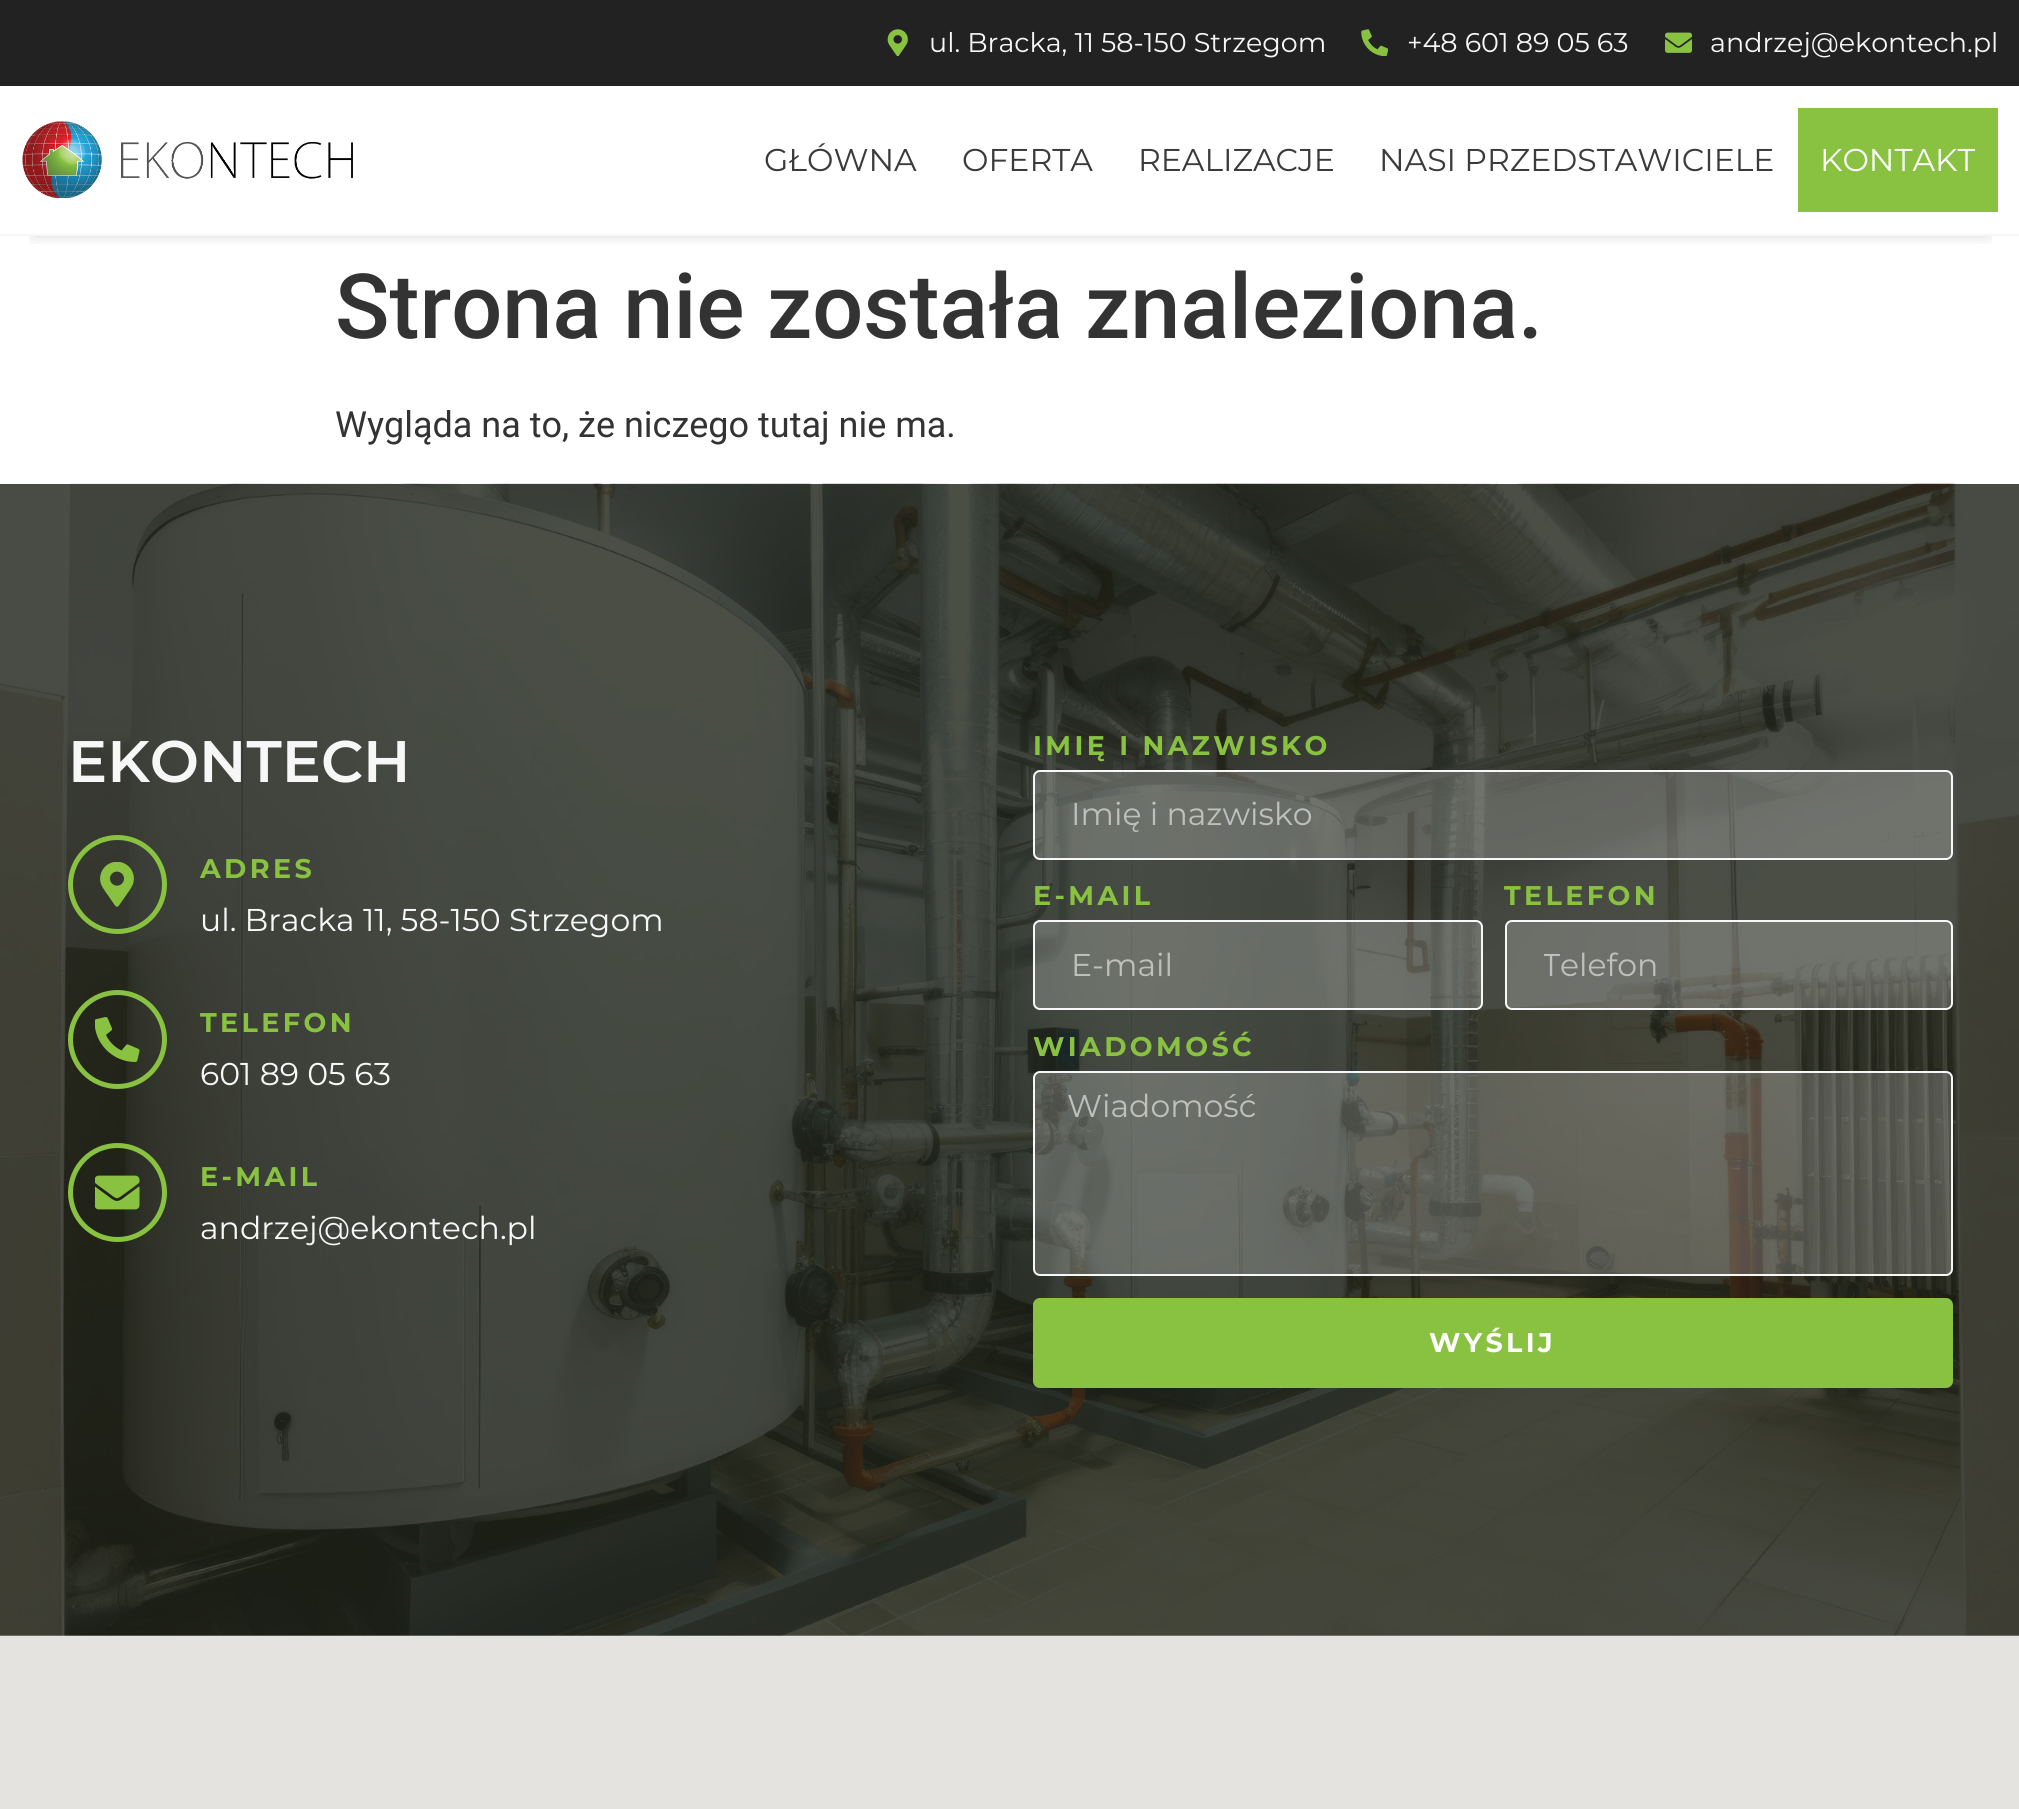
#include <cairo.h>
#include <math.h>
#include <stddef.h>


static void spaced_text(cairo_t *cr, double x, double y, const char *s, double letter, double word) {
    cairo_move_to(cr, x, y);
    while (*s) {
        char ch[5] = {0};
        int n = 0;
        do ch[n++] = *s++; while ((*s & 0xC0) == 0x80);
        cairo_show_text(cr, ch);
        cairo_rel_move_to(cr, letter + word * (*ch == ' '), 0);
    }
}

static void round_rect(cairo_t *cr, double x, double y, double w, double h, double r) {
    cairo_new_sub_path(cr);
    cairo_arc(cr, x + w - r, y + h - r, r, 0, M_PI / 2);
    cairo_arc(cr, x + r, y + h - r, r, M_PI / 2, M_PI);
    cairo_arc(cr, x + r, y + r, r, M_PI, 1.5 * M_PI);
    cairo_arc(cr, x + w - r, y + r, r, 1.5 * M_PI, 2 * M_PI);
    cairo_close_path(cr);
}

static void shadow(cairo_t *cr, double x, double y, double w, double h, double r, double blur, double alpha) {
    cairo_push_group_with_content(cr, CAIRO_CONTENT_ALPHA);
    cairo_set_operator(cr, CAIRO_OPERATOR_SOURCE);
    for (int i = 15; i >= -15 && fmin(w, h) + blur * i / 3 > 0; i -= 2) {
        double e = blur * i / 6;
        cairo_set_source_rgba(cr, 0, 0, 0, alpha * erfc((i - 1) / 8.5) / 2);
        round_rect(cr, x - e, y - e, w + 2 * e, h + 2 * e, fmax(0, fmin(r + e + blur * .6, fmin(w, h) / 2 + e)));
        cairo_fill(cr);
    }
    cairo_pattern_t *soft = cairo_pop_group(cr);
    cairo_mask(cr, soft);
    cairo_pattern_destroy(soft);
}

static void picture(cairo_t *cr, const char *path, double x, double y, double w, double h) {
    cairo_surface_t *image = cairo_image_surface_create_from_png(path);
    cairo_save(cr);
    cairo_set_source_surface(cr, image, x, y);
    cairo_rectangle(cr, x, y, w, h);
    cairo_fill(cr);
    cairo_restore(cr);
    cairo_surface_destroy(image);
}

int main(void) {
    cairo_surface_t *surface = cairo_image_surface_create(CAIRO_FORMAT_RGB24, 2019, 1809);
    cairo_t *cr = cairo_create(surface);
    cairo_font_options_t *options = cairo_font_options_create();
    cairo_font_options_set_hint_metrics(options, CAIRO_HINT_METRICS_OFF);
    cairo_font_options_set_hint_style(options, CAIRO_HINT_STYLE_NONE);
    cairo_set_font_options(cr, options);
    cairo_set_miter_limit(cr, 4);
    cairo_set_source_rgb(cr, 1, 1, 1);
    cairo_paint(cr);
    cairo_set_source_rgb(cr, 0.129, 0.133, 0.129);
    cairo_rectangle(cr, 0, 0, 2019, 86);
    cairo_fill(cr);
    picture(cr, "img1.png", 887, 29, 21, 27);
    cairo_select_font_face(cr, "Montserrat", CAIRO_FONT_SLANT_NORMAL, CAIRO_FONT_WEIGHT_NORMAL);
    cairo_set_font_size(cr, 27);
    cairo_set_source_rgb(cr, 0.965, 0.965, 0.965);
    cairo_move_to(cr, 929, 52);
    cairo_show_text(cr, "ul. Bracka, 11 58-150 Strzegom");
    picture(cr, "img2.png", 1361, 29, 27, 27);
    cairo_move_to(cr, 1407, 52);
    cairo_show_text(cr, "+48 601 89 05 63");
    picture(cr, "img3.png", 1665, 32, 27, 21);
    cairo_move_to(cr, 1710, 52);
    cairo_show_text(cr, "andrzej@ekontech.pl");
    cairo_save(cr);
    cairo_rectangle(cr, 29, 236, 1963, 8);
    cairo_clip(cr);
    cairo_set_source_rgb(cr, 0, 0, 0);
    shadow(cr, 34, 142, 1953, 83, 0, 11, 0.5);
    cairo_restore(cr);
    cairo_rectangle(cr, 0, 234, 2019, 2);
    cairo_fill(cr);
    picture(cr, "img4.png", 22, 121, 331, 77);
    cairo_set_font_size(cr, 31.5);
    cairo_set_source_rgb(cr, 0.231, 0.231, 0.231);
    cairo_move_to(cr, 764, 171);
    cairo_show_text(cr, "GŁÓWNA");
    cairo_move_to(cr, 962, 171);
    cairo_show_text(cr, "OFERTA");
    cairo_move_to(cr, 1138, 171);
    cairo_show_text(cr, "REALIZACJE");
    cairo_move_to(cr, 1379, 171);
    cairo_show_text(cr, "NASI PRZEDSTAWICIELE");
    cairo_set_source_rgb(cr, 0.537, 0.761, 0.255);
    cairo_rectangle(cr, 1798, 108, 200, 104);
    cairo_fill(cr);
    cairo_set_source_rgb(cr, 1, 1, 1);
    cairo_move_to(cr, 1820, 171);
    cairo_show_text(cr, "KONTAKT");
    cairo_select_font_face(cr, "Roboto Medium", CAIRO_FONT_SLANT_NORMAL, CAIRO_FONT_WEIGHT_NORMAL);
    cairo_set_font_size(cr, 90);
    cairo_set_source_rgb(cr, 0.2, 0.2, 0.2);
    cairo_move_to(cr, 335, 338);
    cairo_show_text(cr, "Strona nie została znaleziona.");
    cairo_select_font_face(cr, "Roboto", CAIRO_FONT_SLANT_NORMAL, CAIRO_FONT_WEIGHT_NORMAL);
    cairo_set_font_size(cr, 36);
    cairo_move_to(cr, 335, 437);
    cairo_show_text(cr, "Wygląda na to, że niczego tutaj nie ma.");
    picture(cr, "img5.png", 0, 483, 2019, 1153);
    cairo_select_font_face(cr, "Montserrat SemiBold", CAIRO_FONT_SLANT_NORMAL, CAIRO_FONT_WEIGHT_NORMAL);
    cairo_set_font_size(cr, 58.5);
    cairo_set_source_rgb(cr, 0.965, 0.965, 0.965);
    cairo_move_to(cr, 68, 782);
    cairo_show_text(cr, "EKONTECH");
    cairo_new_path(cr);
    cairo_arc(cr, 117.5, 884.5, 47, 0, 2 * M_PI);
    cairo_set_source_rgb(cr, 0.537, 0.761, 0.255);
    cairo_set_line_width(cr, 5);
    cairo_stroke(cr);
    picture(cr, "img6.png", 100, 862, 34, 45);
    cairo_select_font_face(cr, "Montserrat", CAIRO_FONT_SLANT_NORMAL, CAIRO_FONT_WEIGHT_BOLD);
    cairo_set_font_size(cr, 27);
    spaced_text(cr, 200, 878, "ADRES", 3.4, 0);
    cairo_select_font_face(cr, "Montserrat", CAIRO_FONT_SLANT_NORMAL, CAIRO_FONT_WEIGHT_NORMAL);
    cairo_set_font_size(cr, 31.5);
    cairo_set_source_rgb(cr, 0.965, 0.965, 0.965);
    cairo_move_to(cr, 200, 931);
    cairo_show_text(cr, "ul. Bracka 11, 58-150 Strzegom");
    cairo_new_path(cr);
    cairo_arc(cr, 117.5, 1039.5, 47, 0, 2 * M_PI);
    cairo_set_source_rgb(cr, 0.537, 0.761, 0.255);
    cairo_stroke(cr);
    picture(cr, "img7.png", 95, 1017, 45, 45);
    cairo_select_font_face(cr, "Montserrat", CAIRO_FONT_SLANT_NORMAL, CAIRO_FONT_WEIGHT_BOLD);
    cairo_set_font_size(cr, 27);
    spaced_text(cr, 200, 1032, "TELEFON", 3.4, 0);
    cairo_select_font_face(cr, "Montserrat", CAIRO_FONT_SLANT_NORMAL, CAIRO_FONT_WEIGHT_NORMAL);
    cairo_set_font_size(cr, 31.5);
    cairo_set_source_rgb(cr, 0.965, 0.965, 0.965);
    cairo_move_to(cr, 200, 1085);
    cairo_show_text(cr, "601 89 05 63");
    cairo_new_path(cr);
    cairo_arc(cr, 117.5, 1192.5, 47, 0, 2 * M_PI);
    cairo_set_source_rgb(cr, 0.537, 0.761, 0.255);
    cairo_stroke(cr);
    picture(cr, "img8.png", 95, 1175, 45, 35);
    cairo_select_font_face(cr, "Montserrat", CAIRO_FONT_SLANT_NORMAL, CAIRO_FONT_WEIGHT_BOLD);
    cairo_set_font_size(cr, 27);
    spaced_text(cr, 200, 1186, "E-MAIL", 3.4, 0);
    cairo_select_font_face(cr, "Montserrat", CAIRO_FONT_SLANT_NORMAL, CAIRO_FONT_WEIGHT_NORMAL);
    cairo_set_font_size(cr, 31.5);
    cairo_set_source_rgb(cr, 0.965, 0.965, 0.965);
    cairo_move_to(cr, 200, 1239);
    cairo_show_text(cr, "andrzej@ekontech.pl");
    cairo_select_font_face(cr, "Montserrat", CAIRO_FONT_SLANT_NORMAL, CAIRO_FONT_WEIGHT_BOLD);
    cairo_set_font_size(cr, 27);
    cairo_set_source_rgb(cr, 0.537, 0.761, 0.255);
    spaced_text(cr, 1033, 755, "IMIĘ I NAZWISKO", 3.4, 0);
    cairo_set_source_rgba(cr, 1, 1, 1, 0.21);
    round_rect(cr, 1034, 771, 918, 88, 6);
    cairo_fill_preserve(cr);
    cairo_set_source_rgb(cr, 0.965, 0.965, 0.965);
    cairo_set_line_width(cr, 2);
    cairo_stroke(cr);
    cairo_select_font_face(cr, "Montserrat", CAIRO_FONT_SLANT_NORMAL, CAIRO_FONT_WEIGHT_NORMAL);
    cairo_set_font_size(cr, 31.5);
    cairo_set_source_rgb(cr, 0.745, 0.753, 0.741);
    cairo_move_to(cr, 1071, 825);
    cairo_show_text(cr, "Imię i nazwisko");
    cairo_select_font_face(cr, "Montserrat", CAIRO_FONT_SLANT_NORMAL, CAIRO_FONT_WEIGHT_BOLD);
    cairo_set_font_size(cr, 27);
    cairo_set_source_rgb(cr, 0.537, 0.761, 0.255);
    spaced_text(cr, 1033, 905, "E-MAIL", 3.4, 0);
    cairo_set_source_rgba(cr, 1, 1, 1, 0.21);
    round_rect(cr, 1034, 921, 448, 88, 6);
    cairo_fill_preserve(cr);
    cairo_set_source_rgb(cr, 0.965, 0.965, 0.965);
    cairo_stroke(cr);
    cairo_select_font_face(cr, "Montserrat", CAIRO_FONT_SLANT_NORMAL, CAIRO_FONT_WEIGHT_NORMAL);
    cairo_set_font_size(cr, 31.5);
    cairo_set_source_rgb(cr, 0.745, 0.753, 0.741);
    cairo_move_to(cr, 1071, 976);
    cairo_show_text(cr, "E-mail");
    cairo_select_font_face(cr, "Montserrat", CAIRO_FONT_SLANT_NORMAL, CAIRO_FONT_WEIGHT_BOLD);
    cairo_set_font_size(cr, 27);
    cairo_set_source_rgb(cr, 0.537, 0.761, 0.255);
    spaced_text(cr, 1504, 905, "TELEFON", 3.4, 0);
    cairo_set_source_rgba(cr, 1, 1, 1, 0.21);
    round_rect(cr, 1506, 921, 446, 88, 6);
    cairo_fill_preserve(cr);
    cairo_set_source_rgb(cr, 0.965, 0.965, 0.965);
    cairo_stroke(cr);
    cairo_save(cr);
    cairo_rectangle(cr, 1544, 945, 371, 41);
    cairo_clip(cr);
    cairo_select_font_face(cr, "Montserrat", CAIRO_FONT_SLANT_NORMAL, CAIRO_FONT_WEIGHT_NORMAL);
    cairo_set_font_size(cr, 31.5);
    cairo_set_source_rgb(cr, 0.745, 0.753, 0.741);
    cairo_move_to(cr, 1542, 976);
    cairo_show_text(cr, "Telefon");
    cairo_restore(cr);
    cairo_set_source_rgb(cr, 0.537, 0.761, 0.255);
    spaced_text(cr, 1033, 1056, "WIADOMOŚĆ", 3.4, 0);
    cairo_set_source_rgba(cr, 1, 1, 1, 0.21);
    round_rect(cr, 1034, 1072, 918, 203, 6);
    cairo_fill_preserve(cr);
    cairo_set_source_rgb(cr, 0.965, 0.965, 0.965);
    cairo_stroke(cr);
    cairo_select_font_face(cr, "Montserrat", CAIRO_FONT_SLANT_NORMAL, CAIRO_FONT_WEIGHT_NORMAL);
    cairo_set_font_size(cr, 31.5);
    cairo_set_source_rgb(cr, 0.745, 0.753, 0.741);
    cairo_move_to(cr, 1067, 1117);
    cairo_show_text(cr, "Wiadomość");
    cairo_set_source_rgb(cr, 0.537, 0.761, 0.255);
    round_rect(cr, 1033, 1298, 920, 90, 7);
    cairo_fill(cr);
    cairo_select_font_face(cr, "Montserrat", CAIRO_FONT_SLANT_NORMAL, CAIRO_FONT_WEIGHT_BOLD);
    cairo_set_font_size(cr, 27);
    cairo_set_source_rgb(cr, 1, 1, 1);
    spaced_text(cr, 1429, 1352, "WYŚLIJ", 3.4, 0);
    cairo_set_source_rgb(cr, 0.898, 0.89, 0.875);
    cairo_rectangle(cr, 0, 1636, 2019, 173);
    cairo_fill(cr);
    cairo_surface_write_to_png(surface, "page.png");
    cairo_font_options_destroy(options);
    cairo_destroy(cr);
    cairo_surface_destroy(surface);
    return 0;
}
